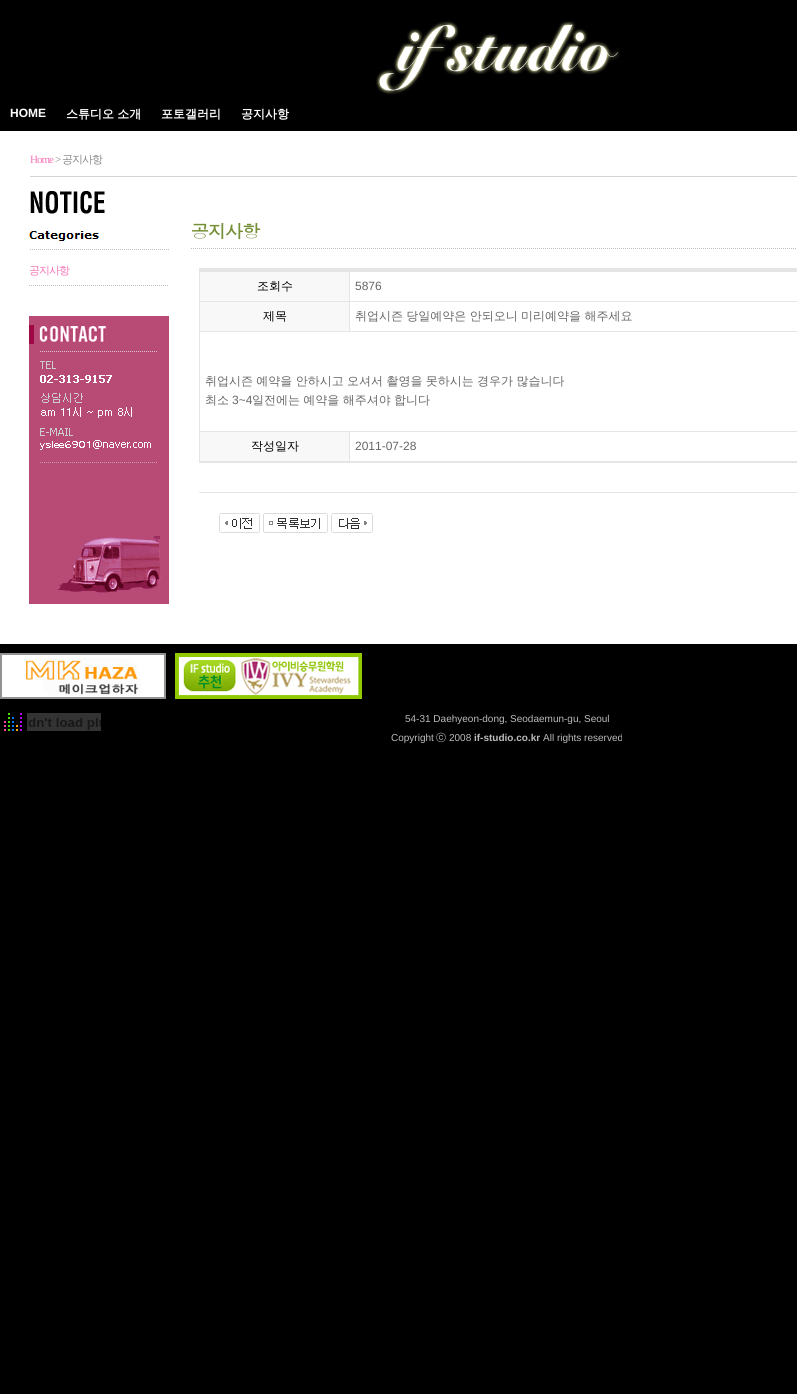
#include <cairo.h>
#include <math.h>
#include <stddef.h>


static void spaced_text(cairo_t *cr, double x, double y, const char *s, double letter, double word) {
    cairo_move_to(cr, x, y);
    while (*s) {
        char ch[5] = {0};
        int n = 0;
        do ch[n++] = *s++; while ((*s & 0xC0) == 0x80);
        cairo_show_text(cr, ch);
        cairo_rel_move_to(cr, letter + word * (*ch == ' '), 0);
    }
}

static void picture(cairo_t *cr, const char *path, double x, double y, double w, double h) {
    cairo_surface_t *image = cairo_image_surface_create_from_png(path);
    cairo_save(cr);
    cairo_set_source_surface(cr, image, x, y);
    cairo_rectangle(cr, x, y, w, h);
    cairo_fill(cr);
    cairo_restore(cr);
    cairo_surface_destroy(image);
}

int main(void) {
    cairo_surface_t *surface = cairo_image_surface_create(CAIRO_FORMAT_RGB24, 797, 1394);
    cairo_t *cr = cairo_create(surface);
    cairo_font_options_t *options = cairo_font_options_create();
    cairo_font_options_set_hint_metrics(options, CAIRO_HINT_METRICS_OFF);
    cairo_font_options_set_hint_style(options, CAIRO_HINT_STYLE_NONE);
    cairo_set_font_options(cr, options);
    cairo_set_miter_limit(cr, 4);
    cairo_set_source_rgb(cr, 0, 0, 0);
    cairo_paint(cr);
    picture(cr, "img1.png", 376, 21, 244, 74);
    cairo_select_font_face(cr, "Liberation Sans", CAIRO_FONT_SLANT_NORMAL, CAIRO_FONT_WEIGHT_BOLD);
    cairo_set_font_size(cr, 12);
    cairo_set_source_rgb(cr, 1, 1, 1);
    cairo_move_to(cr, 10, 117);
    cairo_show_text(cr, "HOME");
    cairo_select_font_face(cr, "WenQuanYi Zen Hei", CAIRO_FONT_SLANT_NORMAL, CAIRO_FONT_WEIGHT_BOLD);
    spaced_text(cr, 66, 118, "스튜디오 소개", 0, -0.25);
    cairo_move_to(cr, 161, 118);
    cairo_show_text(cr, "포토갤러리");
    cairo_move_to(cr, 241, 118);
    cairo_show_text(cr, "공지사항");
    cairo_rectangle(cr, 0, 131, 797, 513);
    cairo_fill(cr);
    cairo_select_font_face(cr, "Liberation Serif", CAIRO_FONT_SLANT_NORMAL, CAIRO_FONT_WEIGHT_NORMAL);
    cairo_set_font_size(cr, 11);
    cairo_set_source_rgb(cr, 0.965, 0.455, 0.714);
    spaced_text(cr, 30, 163, "Home", -1, 0);
    cairo_set_source_rgb(cr, 0.533, 0.533, 0.533);
    spaced_text(cr, 55, 163, ">", -1, 0);
    cairo_select_font_face(cr, "WenQuanYi Zen Hei Medium", CAIRO_FONT_SLANT_NORMAL, CAIRO_FONT_WEIGHT_NORMAL);
    spaced_text(cr, 62, 163, "공지사항", -1, 0);
    cairo_set_source_rgb(cr, 0.831, 0.831, 0.831);
    cairo_rectangle(cr, 30, 176, 767, 1);
    cairo_fill(cr);
    picture(cr, "img2.png", 29, 191, 140, 59);
    cairo_set_source_rgb(cr, 0.965, 0.455, 0.714);
    spaced_text(cr, 29, 274, "공지사항", -1, 0);
    picture(cr, "img3.png", 29, 285, 139, 1);
    picture(cr, "img4.png", 29, 316, 140, 288);
    cairo_select_font_face(cr, "Dotum", CAIRO_FONT_SLANT_NORMAL, CAIRO_FONT_WEIGHT_BOLD);
    cairo_set_font_size(cr, 18);
    cairo_set_source_rgb(cr, 0.459, 0.561, 0.212);
    spaced_text(cr, 191, 238, "공지사항", -1, 0);
    picture(cr, "img5.png", 191, 248, 605, 1);
    cairo_set_source_rgb(cr, 0.898, 0.898, 0.898);
    cairo_rectangle(cr, 199, 268, 598, 4);
    cairo_fill(cr);
    cairo_rectangle(cr, 199, 461, 598, 2);
    cairo_fill(cr);
    cairo_rectangle(cr, 199, 271, 1, 191);
    cairo_fill(cr);
    cairo_set_source_rgb(cr, 0.969, 0.969, 0.969);
    cairo_rectangle(cr, 200, 272, 149, 29);
    cairo_fill(cr);
    cairo_select_font_face(cr, "WenQuanYi Zen Hei Medium", CAIRO_FONT_SLANT_NORMAL, CAIRO_FONT_WEIGHT_NORMAL);
    cairo_set_font_size(cr, 12);
    cairo_set_source_rgb(cr, 0, 0, 0);
    cairo_move_to(cr, 257, 290);
    cairo_show_text(cr, "조회수");
    cairo_set_source_rgb(cr, 0.898, 0.898, 0.898);
    cairo_rectangle(cr, 349, 301, 448, 1);
    cairo_fill(cr);
    cairo_rectangle(cr, 199, 331, 598, 1);
    cairo_fill(cr);
    cairo_rectangle(cr, 349, 301, 1, 31);
    cairo_fill(cr);
    cairo_rectangle(cr, 199, 301, 151, 1);
    cairo_fill(cr);
    cairo_rectangle(cr, 349, 271, 1, 31);
    cairo_fill(cr);
    cairo_select_font_face(cr, "Liberation Sans", CAIRO_FONT_SLANT_NORMAL, CAIRO_FONT_WEIGHT_NORMAL);
    cairo_set_source_rgb(cr, 0.4, 0.4, 0.4);
    cairo_move_to(cr, 355, 290);
    cairo_show_text(cr, "5876");
    cairo_set_source_rgb(cr, 0.969, 0.969, 0.969);
    cairo_rectangle(cr, 200, 302, 149, 29);
    cairo_fill(cr);
    cairo_select_font_face(cr, "WenQuanYi Zen Hei Medium", CAIRO_FONT_SLANT_NORMAL, CAIRO_FONT_WEIGHT_NORMAL);
    cairo_set_source_rgb(cr, 0, 0, 0);
    cairo_move_to(cr, 263, 320);
    cairo_show_text(cr, "제목");
    cairo_set_source_rgb(cr, 0.4, 0.4, 0.4);
    spaced_text(cr, 355, 320, "취업시즌 당일예약은 안되오니 미리예약을 해주세요", 0, -0.25);
    spaced_text(cr, 205, 385, "취업시즌 예약을 안하시고 오셔서 촬영을 못하시는 경우가 많습니다", 0, -0.25);
    cairo_move_to(cr, 205, 404);
    cairo_show_text(cr, "최소");
    cairo_select_font_face(cr, "Liberation Sans", CAIRO_FONT_SLANT_NORMAL, CAIRO_FONT_WEIGHT_NORMAL);
    cairo_move_to(cr, 232, 404);
    cairo_show_text(cr, "3~4");
    cairo_select_font_face(cr, "WenQuanYi Zen Hei Medium", CAIRO_FONT_SLANT_NORMAL, CAIRO_FONT_WEIGHT_NORMAL);
    spaced_text(cr, 252, 404, "일전에는 예약을 해주셔야 합니다", 0, -0.25);
    cairo_set_source_rgb(cr, 0.969, 0.969, 0.969);
    cairo_rectangle(cr, 200, 432, 149, 29);
    cairo_fill(cr);
    cairo_set_source_rgb(cr, 0.898, 0.898, 0.898);
    cairo_rectangle(cr, 349, 431, 448, 1);
    cairo_fill(cr);
    cairo_rectangle(cr, 349, 431, 1, 31);
    cairo_fill(cr);
    cairo_rectangle(cr, 199, 431, 151, 1);
    cairo_fill(cr);
    cairo_set_source_rgb(cr, 0, 0, 0);
    cairo_move_to(cr, 251, 450);
    cairo_show_text(cr, "작성일자");
    cairo_select_font_face(cr, "Liberation Sans", CAIRO_FONT_SLANT_NORMAL, CAIRO_FONT_WEIGHT_NORMAL);
    cairo_set_source_rgb(cr, 0.4, 0.4, 0.4);
    cairo_move_to(cr, 355, 450);
    cairo_show_text(cr, "2011-07-28");
    cairo_set_source_rgb(cr, 0.898, 0.898, 0.898);
    cairo_rectangle(cr, 199, 492, 598, 1);
    cairo_fill(cr);
    picture(cr, "img6.png", 219, 513, 41, 20);
    picture(cr, "img7.png", 263, 513, 65, 20);
    picture(cr, "img8.png", 331, 513, 42, 20);
    picture(cr, "img9.png", 0, 653, 166, 46);
    picture(cr, "img10.png", 175, 653, 187, 46);
    picture(cr, "img11.png", 4, 713, 18, 18);
    picture(cr, "img12.png", 27, 713, 74, 18);
    cairo_set_font_size(cr, 10);
    cairo_set_source_rgb(cr, 0.737, 0.737, 0.737);
    cairo_move_to(cr, 405, 722);
    cairo_show_text(cr, "54-31 Daehyeon-dong, Seodaemun-gu, Seoul");
    cairo_move_to(cr, 391, 741);
    cairo_show_text(cr, "Copyright");
    cairo_select_font_face(cr, "WenQuanYi Zen Hei Medium", CAIRO_FONT_SLANT_NORMAL, CAIRO_FONT_WEIGHT_NORMAL);
    cairo_move_to(cr, 436, 741);
    cairo_show_text(cr, "ⓒ");
    cairo_select_font_face(cr, "Liberation Sans", CAIRO_FONT_SLANT_NORMAL, CAIRO_FONT_WEIGHT_NORMAL);
    cairo_move_to(cr, 449, 741);
    cairo_show_text(cr, "2008");
    cairo_select_font_face(cr, "Liberation Sans", CAIRO_FONT_SLANT_NORMAL, CAIRO_FONT_WEIGHT_BOLD);
    cairo_move_to(cr, 474, 741);
    cairo_show_text(cr, "if-studio.co.kr");
    cairo_select_font_face(cr, "Liberation Sans", CAIRO_FONT_SLANT_NORMAL, CAIRO_FONT_WEIGHT_NORMAL);
    cairo_move_to(cr, 543, 741);
    cairo_show_text(cr, "All rights reserved");
    cairo_surface_write_to_png(surface, "page.png");
    cairo_font_options_destroy(options);
    cairo_destroy(cr);
    cairo_surface_destroy(surface);
    return 0;
}
